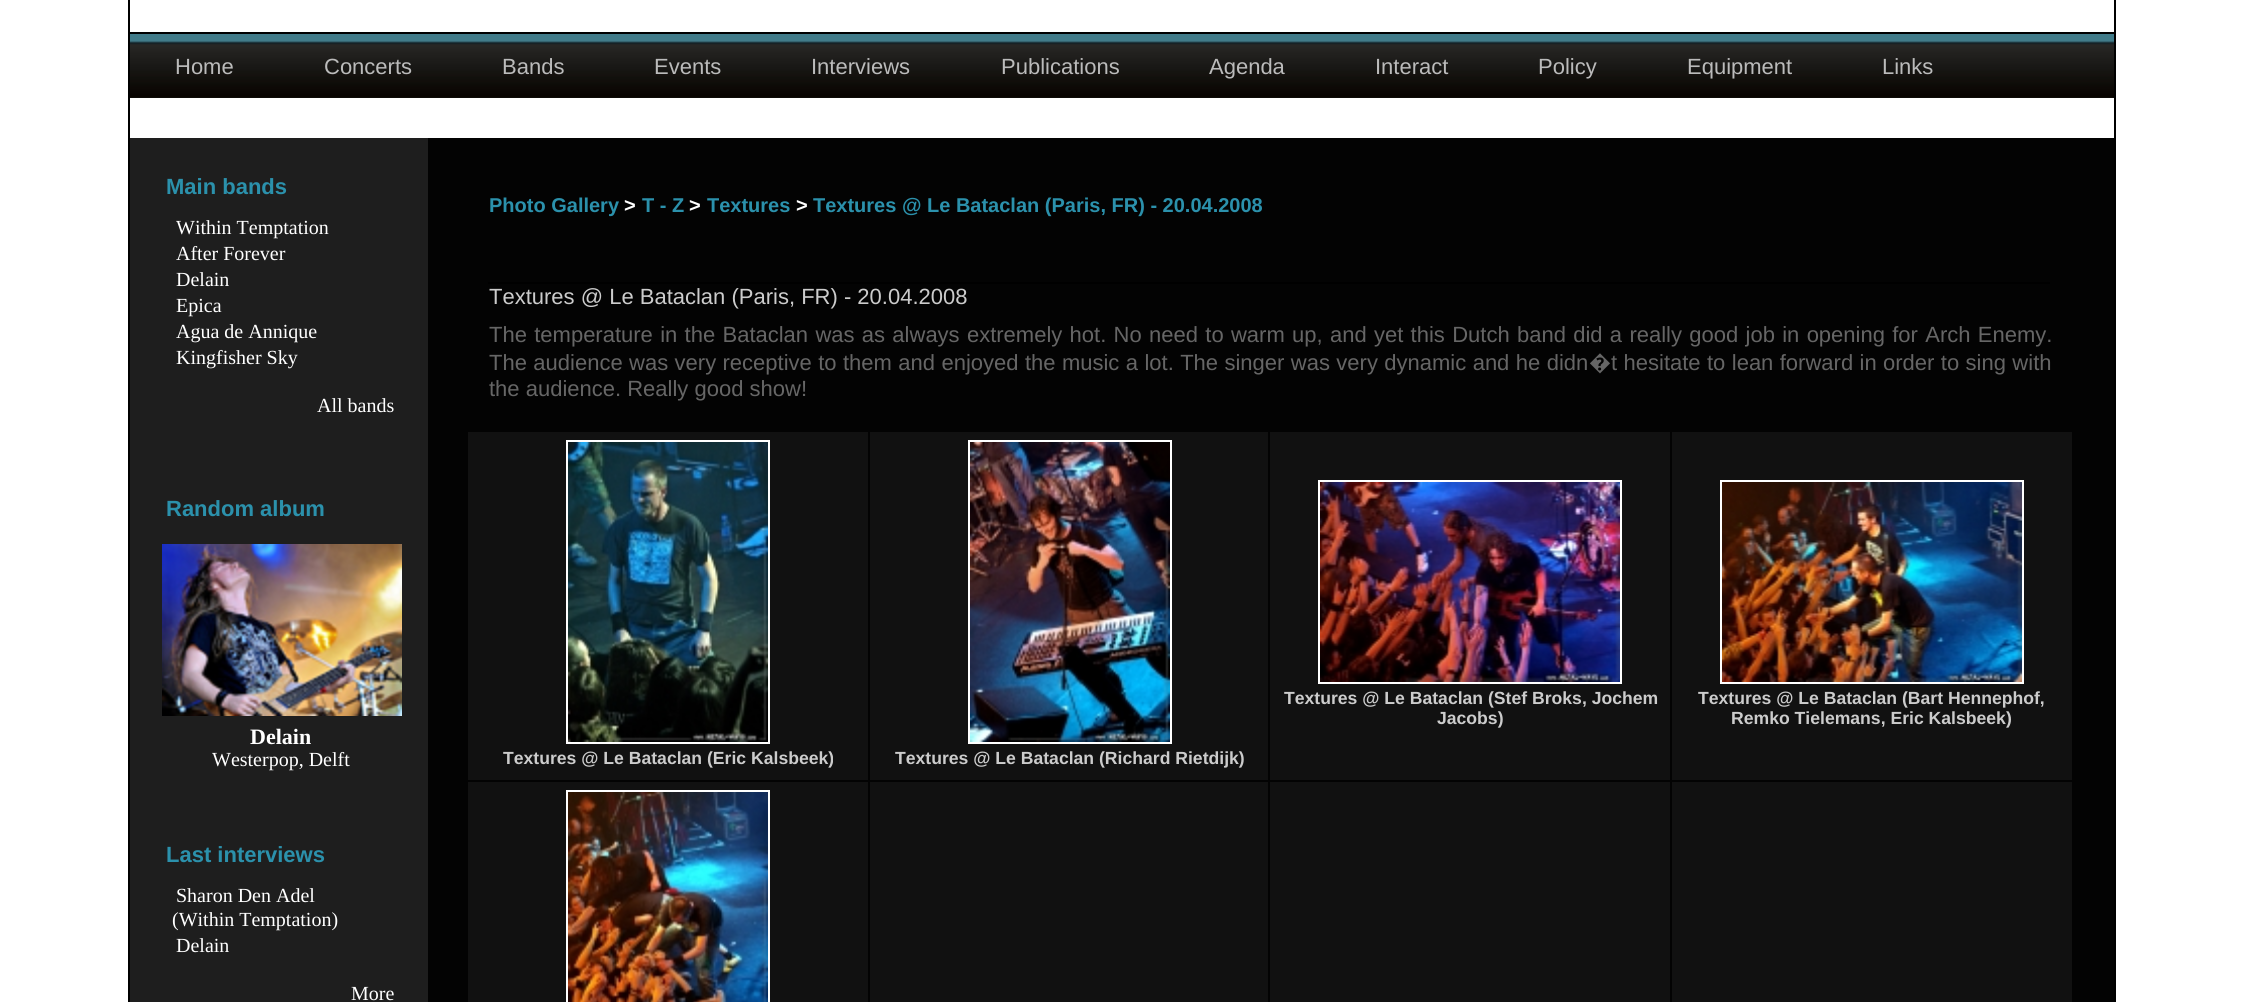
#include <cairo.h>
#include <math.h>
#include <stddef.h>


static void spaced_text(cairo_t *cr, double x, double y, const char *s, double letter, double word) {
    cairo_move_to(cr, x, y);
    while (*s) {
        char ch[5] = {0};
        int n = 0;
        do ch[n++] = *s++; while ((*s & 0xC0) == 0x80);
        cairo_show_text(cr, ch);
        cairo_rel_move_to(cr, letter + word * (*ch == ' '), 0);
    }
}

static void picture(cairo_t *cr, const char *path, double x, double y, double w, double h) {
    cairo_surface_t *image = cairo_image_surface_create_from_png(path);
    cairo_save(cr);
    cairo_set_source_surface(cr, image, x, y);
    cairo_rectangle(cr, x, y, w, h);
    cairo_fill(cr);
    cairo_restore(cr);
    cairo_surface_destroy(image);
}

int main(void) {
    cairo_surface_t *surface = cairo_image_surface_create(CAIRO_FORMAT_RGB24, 2242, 1002);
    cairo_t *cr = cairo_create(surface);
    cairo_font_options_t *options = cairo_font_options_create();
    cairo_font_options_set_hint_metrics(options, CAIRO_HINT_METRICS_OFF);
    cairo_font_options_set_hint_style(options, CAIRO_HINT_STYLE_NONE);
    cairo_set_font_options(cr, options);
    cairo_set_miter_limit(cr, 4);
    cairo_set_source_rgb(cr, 1, 1, 1);
    cairo_paint(cr);
    cairo_set_source_rgb(cr, 0, 0, 0);
    cairo_rectangle(cr, 2114, 0, 2, 1002);
    cairo_fill(cr);
    cairo_rectangle(cr, 128, 0, 2, 1002);
    cairo_fill(cr);
    cairo_rectangle(cr, 130, 32, 1984, 2);
    cairo_fill(cr);
    picture(cr, "img1.png", 130, 34, 1984, 64);
    cairo_select_font_face(cr, "Liberation Sans", CAIRO_FONT_SLANT_NORMAL, CAIRO_FONT_WEIGHT_NORMAL);
    cairo_set_font_size(cr, 22);
    cairo_set_source_rgb(cr, 0.733, 0.733, 0.733);
    cairo_move_to(cr, 175, 74);
    cairo_show_text(cr, "Home");
    cairo_move_to(cr, 324, 74);
    cairo_show_text(cr, "Concerts");
    cairo_move_to(cr, 502, 74);
    cairo_show_text(cr, "Bands");
    cairo_move_to(cr, 654, 74);
    cairo_show_text(cr, "Events");
    cairo_move_to(cr, 811, 74);
    cairo_show_text(cr, "Interviews");
    cairo_move_to(cr, 1001, 74);
    cairo_show_text(cr, "Publications");
    cairo_move_to(cr, 1209, 74);
    cairo_show_text(cr, "Agenda");
    cairo_move_to(cr, 1375, 74);
    cairo_show_text(cr, "Interact");
    cairo_move_to(cr, 1538, 74);
    cairo_show_text(cr, "Policy");
    cairo_move_to(cr, 1687, 74);
    cairo_show_text(cr, "Equipment");
    cairo_move_to(cr, 1882, 74);
    cairo_show_text(cr, "Links");
    cairo_set_source_rgb(cr, 0.118, 0.118, 0.118);
    cairo_rectangle(cr, 130, 138, 298, 864);
    cairo_fill(cr);
    cairo_select_font_face(cr, "Liberation Sans", CAIRO_FONT_SLANT_NORMAL, CAIRO_FONT_WEIGHT_BOLD);
    cairo_set_source_rgb(cr, 0.169, 0.569, 0.675);
    cairo_move_to(cr, 166, 194);
    cairo_show_text(cr, "Main bands");
    cairo_select_font_face(cr, "Liberation Serif", CAIRO_FONT_SLANT_NORMAL, CAIRO_FONT_WEIGHT_NORMAL);
    cairo_set_font_size(cr, 20);
    cairo_set_source_rgb(cr, 1, 1, 1);
    cairo_move_to(cr, 176, 234);
    cairo_show_text(cr, "Within Temptation");
    cairo_move_to(cr, 176, 260);
    cairo_show_text(cr, "After Forever");
    cairo_move_to(cr, 176, 286);
    cairo_show_text(cr, "Delain");
    cairo_move_to(cr, 176, 312);
    cairo_show_text(cr, "Epica");
    cairo_move_to(cr, 176, 338);
    cairo_show_text(cr, "Agua de Annique");
    cairo_move_to(cr, 176, 364);
    cairo_show_text(cr, "Kingfisher Sky");
    cairo_move_to(cr, 317, 412);
    cairo_show_text(cr, "All bands");
    cairo_select_font_face(cr, "Liberation Sans", CAIRO_FONT_SLANT_NORMAL, CAIRO_FONT_WEIGHT_BOLD);
    cairo_set_font_size(cr, 22);
    cairo_set_source_rgb(cr, 0.169, 0.569, 0.675);
    cairo_move_to(cr, 166, 516);
    cairo_show_text(cr, "Random album");
    picture(cr, "img2.png", 162, 544, 240, 172);
    cairo_select_font_face(cr, "Liberation Serif", CAIRO_FONT_SLANT_NORMAL, CAIRO_FONT_WEIGHT_BOLD);
    cairo_set_source_rgb(cr, 1, 1, 1);
    cairo_move_to(cr, 250, 744);
    cairo_show_text(cr, "Delain");
    cairo_select_font_face(cr, "Liberation Serif", CAIRO_FONT_SLANT_NORMAL, CAIRO_FONT_WEIGHT_NORMAL);
    cairo_set_font_size(cr, 20);
    cairo_move_to(cr, 212, 766);
    cairo_show_text(cr, "Westerpop, Delft");
    cairo_select_font_face(cr, "Liberation Sans", CAIRO_FONT_SLANT_NORMAL, CAIRO_FONT_WEIGHT_BOLD);
    cairo_set_font_size(cr, 22);
    cairo_set_source_rgb(cr, 0.169, 0.569, 0.675);
    cairo_move_to(cr, 166, 862);
    cairo_show_text(cr, "Last interviews");
    cairo_select_font_face(cr, "Liberation Serif", CAIRO_FONT_SLANT_NORMAL, CAIRO_FONT_WEIGHT_NORMAL);
    cairo_set_font_size(cr, 20);
    cairo_set_source_rgb(cr, 1, 1, 1);
    cairo_move_to(cr, 176, 902);
    cairo_show_text(cr, "Sharon Den Adel");
    cairo_move_to(cr, 172, 926);
    cairo_show_text(cr, "(Within Temptation)");
    cairo_move_to(cr, 176, 952);
    cairo_show_text(cr, "Delain");
    cairo_move_to(cr, 351, 1000);
    cairo_show_text(cr, "More");
    cairo_set_source_rgb(cr, 0.012, 0.012, 0.012);
    cairo_rectangle(cr, 428, 138, 1686, 864);
    cairo_fill(cr);
    cairo_select_font_face(cr, "Liberation Sans", CAIRO_FONT_SLANT_NORMAL, CAIRO_FONT_WEIGHT_BOLD);
    cairo_set_source_rgb(cr, 0.169, 0.569, 0.675);
    cairo_move_to(cr, 489, 212);
    cairo_show_text(cr, "Photo Gallery");
    cairo_set_source_rgb(cr, 1, 1, 1);
    cairo_move_to(cr, 624, 212);
    cairo_show_text(cr, ">");
    cairo_set_source_rgb(cr, 0.169, 0.569, 0.675);
    cairo_move_to(cr, 642, 212);
    cairo_show_text(cr, "T - Z");
    cairo_set_source_rgb(cr, 1, 1, 1);
    cairo_move_to(cr, 689, 212);
    cairo_show_text(cr, ">");
    cairo_set_source_rgb(cr, 0.169, 0.569, 0.675);
    cairo_move_to(cr, 707, 212);
    cairo_show_text(cr, "Textures");
    cairo_set_source_rgb(cr, 1, 1, 1);
    cairo_move_to(cr, 796, 212);
    cairo_show_text(cr, ">");
    cairo_set_source_rgb(cr, 0.169, 0.569, 0.675);
    cairo_move_to(cr, 813, 212);
    cairo_show_text(cr, "Textures @ Le Bataclan (Paris, FR) - 20.04.2008");
    cairo_set_source_rgb(cr, 0, 0, 0);
    cairo_rectangle(cr, 488, 282, 1562, 2);
    cairo_fill(cr);
    cairo_select_font_face(cr, "Liberation Sans", CAIRO_FONT_SLANT_NORMAL, CAIRO_FONT_WEIGHT_NORMAL);
    cairo_set_font_size(cr, 22);
    cairo_set_source_rgb(cr, 0.8, 0.8, 0.8);
    cairo_move_to(cr, 489, 304);
    cairo_show_text(cr, "Textures @ Le Bataclan (Paris, FR) - 20.04.2008");
    cairo_set_source_rgb(cr, 0.4, 0.4, 0.4);
    spaced_text(cr, 489, 342, "The temperature in the Bataclan was as always extremely hot. No need to warm up, and yet this Dutch band did a really good job in opening for Arch Enemy.", 0, 1.2);
    spaced_text(cr, 489, 370, "The audience was very receptive to them and enjoyed the music a lot. The singer was very dynamic and he didn", 0, 0.3);
    cairo_select_font_face(cr, "Noto Sans", CAIRO_FONT_SLANT_NORMAL, CAIRO_FONT_WEIGHT_NORMAL);
    cairo_move_to(cr, 1589, 370);
    cairo_show_text(cr, "�");
    cairo_select_font_face(cr, "Liberation Sans", CAIRO_FONT_SLANT_NORMAL, CAIRO_FONT_WEIGHT_NORMAL);
    spaced_text(cr, 1611, 370, "t hesitate to lean forward in order to sing with", 0, 0.3);
    cairo_move_to(cr, 489, 396);
    cairo_show_text(cr, "the audience. Really good show!");
    cairo_set_source_rgb(cr, 0.067, 0.067, 0.067);
    cairo_rectangle(cr, 1270, 432, 400, 348);
    cairo_fill(cr);
    cairo_rectangle(cr, 1319, 481, 302, 202);
    cairo_set_source_rgb(cr, 1, 1, 1);
    cairo_stroke(cr);
    picture(cr, "img3.png", 1320, 482, 300, 200);
    cairo_select_font_face(cr, "Liberation Sans", CAIRO_FONT_SLANT_NORMAL, CAIRO_FONT_WEIGHT_BOLD);
    cairo_set_font_size(cr, 17.6);
    cairo_set_source_rgb(cr, 0.8, 0.8, 0.8);
    cairo_move_to(cr, 1284, 704);
    cairo_show_text(cr, "Textures @ Le Bataclan (Stef Broks, Jochem");
    cairo_move_to(cr, 1437, 724);
    cairo_show_text(cr, "Jacobs)");
    cairo_set_source_rgb(cr, 0.067, 0.067, 0.067);
    cairo_rectangle(cr, 1672, 432, 400, 348);
    cairo_fill(cr);
    cairo_rectangle(cr, 1721, 481, 302, 202);
    cairo_set_source_rgb(cr, 1, 1, 1);
    cairo_stroke(cr);
    picture(cr, "img4.png", 1722, 482, 300, 200);
    cairo_set_source_rgb(cr, 0.8, 0.8, 0.8);
    cairo_move_to(cr, 1698, 704);
    cairo_show_text(cr, "Textures @ Le Bataclan (Bart Hennephof,");
    cairo_move_to(cr, 1731, 724);
    cairo_show_text(cr, "Remko Tielemans, Eric Kalsbeek)");
    cairo_set_source_rgb(cr, 0.067, 0.067, 0.067);
    cairo_rectangle(cr, 468, 432, 400, 348);
    cairo_fill(cr);
    cairo_rectangle(cr, 567, 441, 202, 302);
    cairo_set_source_rgb(cr, 1, 1, 1);
    cairo_stroke(cr);
    picture(cr, "img5.png", 568, 442, 200, 300);
    cairo_set_source_rgb(cr, 0.8, 0.8, 0.8);
    cairo_move_to(cr, 503, 764);
    cairo_show_text(cr, "Textures @ Le Bataclan (Eric Kalsbeek)");
    cairo_set_source_rgb(cr, 0.067, 0.067, 0.067);
    cairo_rectangle(cr, 870, 432, 398, 348);
    cairo_fill(cr);
    cairo_rectangle(cr, 969, 441, 202, 302);
    cairo_set_source_rgb(cr, 1, 1, 1);
    cairo_stroke(cr);
    picture(cr, "img6.png", 970, 442, 200, 300);
    cairo_set_source_rgb(cr, 0.8, 0.8, 0.8);
    cairo_move_to(cr, 895, 764);
    cairo_show_text(cr, "Textures @ Le Bataclan (Richard Rietdijk)");
    cairo_set_source_rgb(cr, 0.067, 0.067, 0.067);
    cairo_rectangle(cr, 468, 782, 400, 220);
    cairo_fill(cr);
    cairo_rectangle(cr, 567, 791, 202, 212);
    cairo_set_source_rgb(cr, 1, 1, 1);
    cairo_stroke(cr);
    picture(cr, "img7.png", 568, 792, 200, 210);
    cairo_set_source_rgb(cr, 0.067, 0.067, 0.067);
    cairo_rectangle(cr, 870, 782, 398, 220);
    cairo_fill(cr);
    cairo_rectangle(cr, 1270, 782, 400, 220);
    cairo_fill(cr);
    cairo_rectangle(cr, 1672, 782, 400, 220);
    cairo_fill(cr);
    cairo_surface_write_to_png(surface, "page.png");
    cairo_font_options_destroy(options);
    cairo_destroy(cr);
    cairo_surface_destroy(surface);
    return 0;
}
